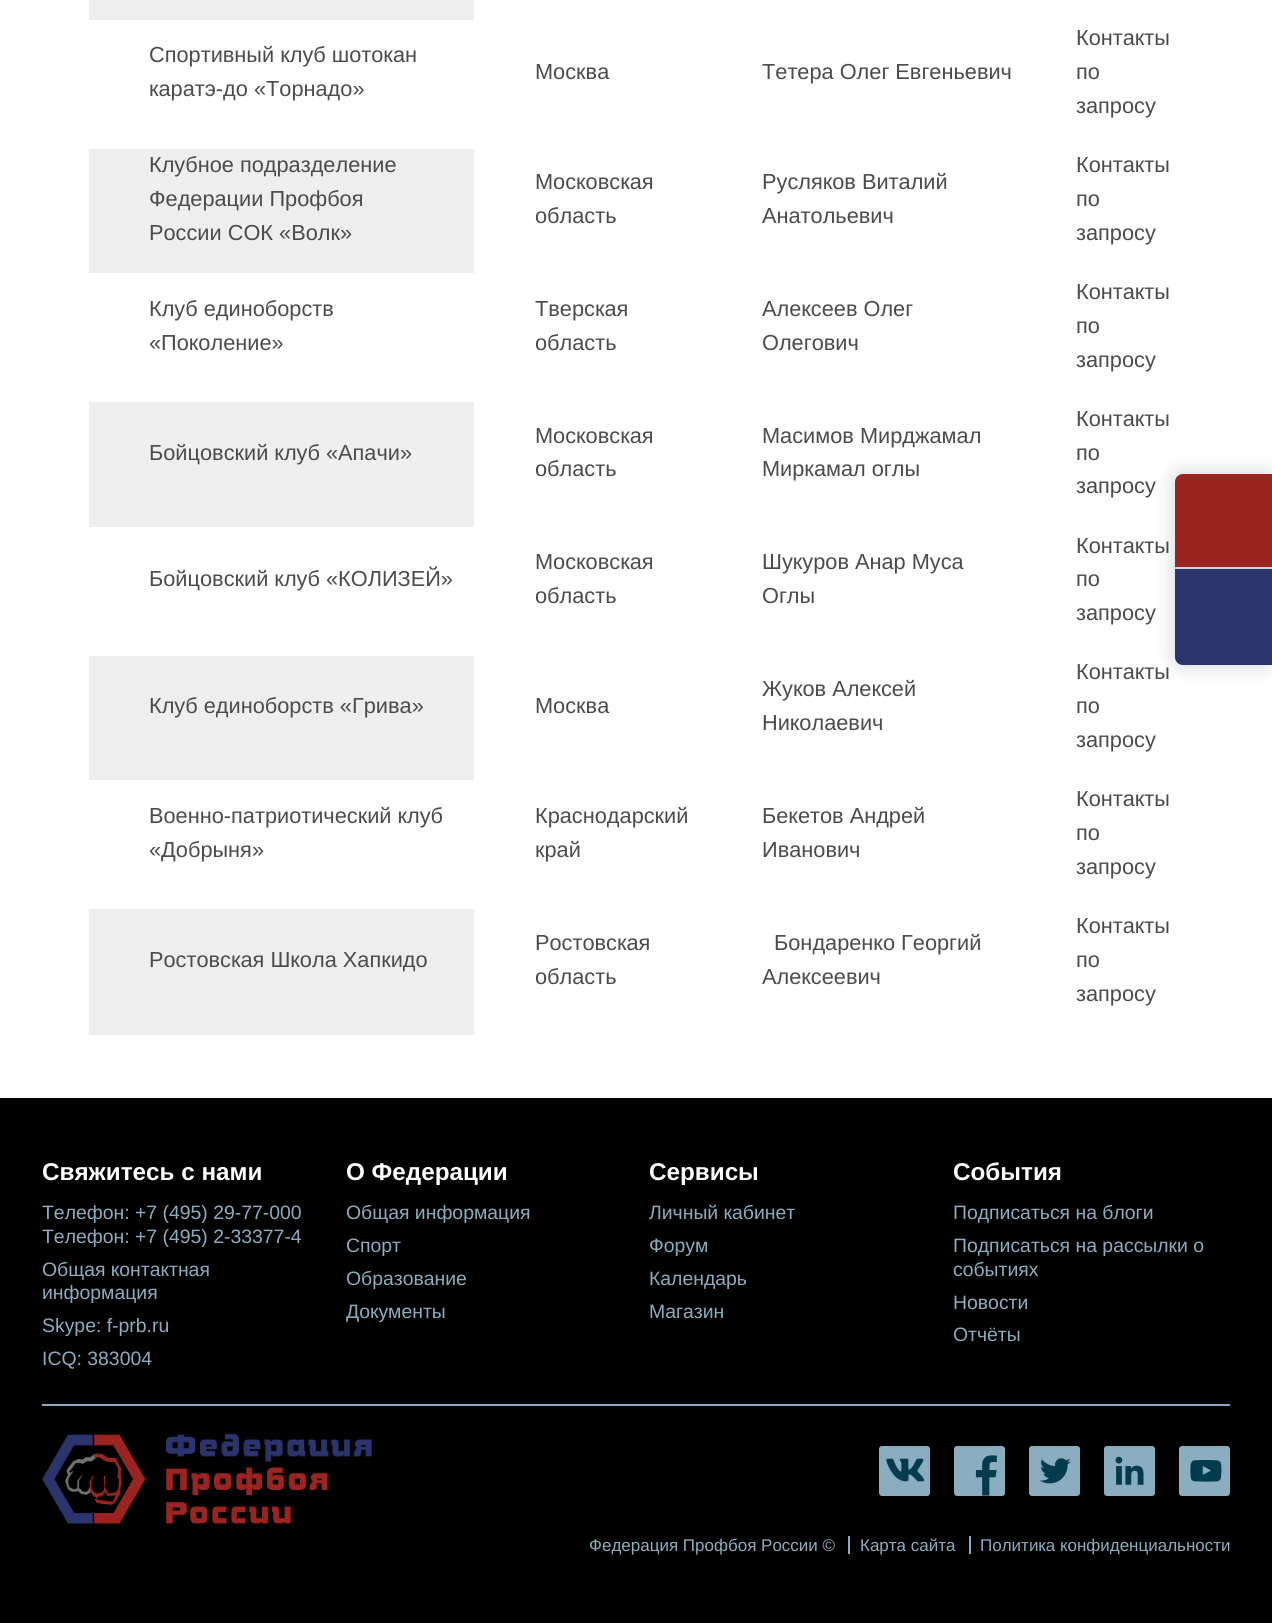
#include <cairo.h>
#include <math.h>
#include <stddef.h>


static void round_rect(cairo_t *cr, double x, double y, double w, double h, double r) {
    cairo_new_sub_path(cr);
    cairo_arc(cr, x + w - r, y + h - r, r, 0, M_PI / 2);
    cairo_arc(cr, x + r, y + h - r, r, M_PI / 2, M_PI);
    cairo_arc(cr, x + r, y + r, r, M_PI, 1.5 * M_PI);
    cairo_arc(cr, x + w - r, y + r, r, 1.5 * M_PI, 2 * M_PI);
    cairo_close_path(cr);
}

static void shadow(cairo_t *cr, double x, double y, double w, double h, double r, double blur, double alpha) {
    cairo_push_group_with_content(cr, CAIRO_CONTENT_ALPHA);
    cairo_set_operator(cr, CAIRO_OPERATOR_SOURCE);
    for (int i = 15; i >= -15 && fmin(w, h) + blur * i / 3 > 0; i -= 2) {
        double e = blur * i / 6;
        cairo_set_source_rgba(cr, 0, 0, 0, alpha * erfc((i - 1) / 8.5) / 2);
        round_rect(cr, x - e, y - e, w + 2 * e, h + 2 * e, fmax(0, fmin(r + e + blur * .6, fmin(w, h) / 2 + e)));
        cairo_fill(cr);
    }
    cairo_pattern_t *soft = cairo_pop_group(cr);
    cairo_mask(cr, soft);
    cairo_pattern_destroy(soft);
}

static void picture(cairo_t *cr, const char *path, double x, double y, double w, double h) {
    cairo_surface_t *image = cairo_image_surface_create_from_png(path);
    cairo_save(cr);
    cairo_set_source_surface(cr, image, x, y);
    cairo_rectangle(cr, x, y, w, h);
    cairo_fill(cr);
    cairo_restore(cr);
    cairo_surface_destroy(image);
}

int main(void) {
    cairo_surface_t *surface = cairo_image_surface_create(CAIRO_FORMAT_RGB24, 1272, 1623);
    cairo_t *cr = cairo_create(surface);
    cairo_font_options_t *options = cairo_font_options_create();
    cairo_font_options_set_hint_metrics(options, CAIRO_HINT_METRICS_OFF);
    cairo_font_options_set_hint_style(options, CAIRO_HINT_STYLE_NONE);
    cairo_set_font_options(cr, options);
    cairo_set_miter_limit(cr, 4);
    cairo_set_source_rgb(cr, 1, 1, 1);
    cairo_paint(cr);
    cairo_set_source_rgb(cr, 0.933, 0.933, 0.933);
    cairo_rectangle(cr, 89, 0, 385, 20);
    cairo_fill(cr);
    cairo_select_font_face(cr, "Liberation Sans", CAIRO_FONT_SLANT_NORMAL, CAIRO_FONT_WEIGHT_NORMAL);
    cairo_set_font_size(cr, 21.75);
    cairo_set_source_rgb(cr, 0.286, 0.294, 0.302);
    cairo_move_to(cr, 149, 62);
    cairo_show_text(cr, "Спортивный клуб шотокан");
    cairo_move_to(cr, 149, 96);
    cairo_show_text(cr, "каратэ-до «Торнадо»");
    cairo_move_to(cr, 535, 79);
    cairo_show_text(cr, "Москва");
    cairo_move_to(cr, 762, 79);
    cairo_show_text(cr, "Тетера Олег Евгеньевич");
    cairo_move_to(cr, 1076, 45);
    cairo_show_text(cr, "Контакты");
    cairo_move_to(cr, 1076, 79);
    cairo_show_text(cr, "по");
    cairo_move_to(cr, 1076, 113);
    cairo_show_text(cr, "запросу");
    cairo_set_source_rgb(cr, 0.933, 0.933, 0.933);
    cairo_rectangle(cr, 89, 149, 385, 124);
    cairo_fill(cr);
    cairo_set_source_rgb(cr, 0.286, 0.294, 0.302);
    cairo_move_to(cr, 149, 172);
    cairo_show_text(cr, "Клубное подразделение");
    cairo_move_to(cr, 149, 206);
    cairo_show_text(cr, "Федерации Профбоя");
    cairo_move_to(cr, 149, 240);
    cairo_show_text(cr, "России СОК «Волк»");
    cairo_move_to(cr, 535, 189);
    cairo_show_text(cr, "Московская");
    cairo_move_to(cr, 535, 223);
    cairo_show_text(cr, "область");
    cairo_move_to(cr, 762, 189);
    cairo_show_text(cr, "Русляков Виталий");
    cairo_move_to(cr, 762, 223);
    cairo_show_text(cr, "Анатольевич");
    cairo_move_to(cr, 1076, 172);
    cairo_show_text(cr, "Контакты");
    cairo_move_to(cr, 1076, 206);
    cairo_show_text(cr, "по");
    cairo_move_to(cr, 1076, 240);
    cairo_show_text(cr, "запросу");
    cairo_move_to(cr, 149, 316);
    cairo_show_text(cr, "Клуб единоборств");
    cairo_move_to(cr, 149, 350);
    cairo_show_text(cr, "«Поколение»");
    cairo_move_to(cr, 535, 316);
    cairo_show_text(cr, "Тверская");
    cairo_move_to(cr, 535, 350);
    cairo_show_text(cr, "область");
    cairo_move_to(cr, 762, 316);
    cairo_show_text(cr, "Алексеев Олег");
    cairo_move_to(cr, 762, 350);
    cairo_show_text(cr, "Олегович");
    cairo_move_to(cr, 1076, 299);
    cairo_show_text(cr, "Контакты");
    cairo_move_to(cr, 1076, 333);
    cairo_show_text(cr, "по");
    cairo_move_to(cr, 1076, 367);
    cairo_show_text(cr, "запросу");
    cairo_set_source_rgb(cr, 0.933, 0.933, 0.933);
    cairo_rectangle(cr, 89, 402, 385, 125);
    cairo_fill(cr);
    cairo_set_source_rgb(cr, 0.286, 0.294, 0.302);
    cairo_move_to(cr, 149, 460);
    cairo_show_text(cr, "Бойцовский клуб «Апачи»");
    cairo_move_to(cr, 535, 443);
    cairo_show_text(cr, "Московская");
    cairo_move_to(cr, 535, 476);
    cairo_show_text(cr, "область");
    cairo_move_to(cr, 762, 443);
    cairo_show_text(cr, "Масимов Мирджамал");
    cairo_move_to(cr, 762, 476);
    cairo_show_text(cr, "Миркамал оглы");
    cairo_move_to(cr, 1076, 426);
    cairo_show_text(cr, "Контакты");
    cairo_move_to(cr, 1076, 460);
    cairo_show_text(cr, "по");
    cairo_move_to(cr, 1076, 493);
    cairo_show_text(cr, "запросу");
    cairo_move_to(cr, 149, 586);
    cairo_show_text(cr, "Бойцовский клуб «КОЛИЗЕЙ»");
    cairo_move_to(cr, 535, 569);
    cairo_show_text(cr, "Московская");
    cairo_move_to(cr, 535, 603);
    cairo_show_text(cr, "область");
    cairo_move_to(cr, 762, 569);
    cairo_show_text(cr, "Шукуров Анар Муса");
    cairo_move_to(cr, 762, 603);
    cairo_show_text(cr, "Оглы");
    cairo_move_to(cr, 1076, 553);
    cairo_show_text(cr, "Контакты");
    cairo_move_to(cr, 1076, 586);
    cairo_show_text(cr, "по");
    cairo_move_to(cr, 1076, 620);
    cairo_show_text(cr, "запросу");
    cairo_set_source_rgb(cr, 0.933, 0.933, 0.933);
    cairo_rectangle(cr, 89, 656, 385, 124);
    cairo_fill(cr);
    cairo_set_source_rgb(cr, 0.286, 0.294, 0.302);
    cairo_move_to(cr, 149, 713);
    cairo_show_text(cr, "Клуб единоборств «Грива»");
    cairo_move_to(cr, 535, 713);
    cairo_show_text(cr, "Москва");
    cairo_move_to(cr, 762, 696);
    cairo_show_text(cr, "Жуков Алексей");
    cairo_move_to(cr, 762, 730);
    cairo_show_text(cr, "Николаевич");
    cairo_move_to(cr, 1076, 679);
    cairo_show_text(cr, "Контакты");
    cairo_move_to(cr, 1076, 713);
    cairo_show_text(cr, "по");
    cairo_move_to(cr, 1076, 747);
    cairo_show_text(cr, "запросу");
    cairo_move_to(cr, 149, 823);
    cairo_show_text(cr, "Военно-патриотический клуб");
    cairo_move_to(cr, 149, 857);
    cairo_show_text(cr, "«Добрыня»");
    cairo_move_to(cr, 535, 823);
    cairo_show_text(cr, "Краснодарский");
    cairo_move_to(cr, 535, 857);
    cairo_show_text(cr, "край");
    cairo_move_to(cr, 762, 823);
    cairo_show_text(cr, "Бекетов Андрей");
    cairo_move_to(cr, 762, 857);
    cairo_show_text(cr, "Иванович");
    cairo_move_to(cr, 1076, 806);
    cairo_show_text(cr, "Контакты");
    cairo_move_to(cr, 1076, 840);
    cairo_show_text(cr, "по");
    cairo_move_to(cr, 1076, 874);
    cairo_show_text(cr, "запросу");
    cairo_set_source_rgb(cr, 0.933, 0.933, 0.933);
    cairo_rectangle(cr, 89, 909, 385, 126);
    cairo_fill(cr);
    cairo_set_source_rgb(cr, 0.286, 0.294, 0.302);
    cairo_move_to(cr, 149, 967);
    cairo_show_text(cr, "Ростовская Школа Хапкидо");
    cairo_move_to(cr, 535, 950);
    cairo_show_text(cr, "Ростовская");
    cairo_move_to(cr, 535, 984);
    cairo_show_text(cr, "область");
    cairo_move_to(cr, 774, 950);
    cairo_show_text(cr, "Бондаренко Георгий");
    cairo_move_to(cr, 762, 984);
    cairo_show_text(cr, "Алексеевич");
    cairo_move_to(cr, 1076, 933);
    cairo_show_text(cr, "Контакты");
    cairo_move_to(cr, 1076, 967);
    cairo_show_text(cr, "по");
    cairo_move_to(cr, 1076, 1001);
    cairo_show_text(cr, "запросу");
    cairo_set_source_rgb(cr, 0.196, 0.294, 0.361);
    shadow(cr, 1169, 468, 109, 203, 14, 7.5, 0.15);
    cairo_set_source_rgb(cr, 0.608, 0.141, 0.125);
    cairo_new_path(cr);
    cairo_move_to(cr, 1183, 474);
    cairo_line_to(cr, 1272, 474);
    cairo_line_to(cr, 1272, 570);
    cairo_line_to(cr, 1175, 570);
    cairo_line_to(cr, 1175, 482);
    cairo_curve_to(cr, 1175, 477.5, 1178.5, 474, 1183, 474);
    cairo_close_path(cr);
    cairo_fill(cr);
    cairo_set_source_rgb(cr, 0.169, 0.204, 0.427);
    cairo_new_path(cr);
    cairo_move_to(cr, 1175, 567);
    cairo_line_to(cr, 1272, 567);
    cairo_line_to(cr, 1272, 665);
    cairo_line_to(cr, 1183, 665);
    cairo_curve_to(cr, 1178.5, 665, 1175, 661.5, 1175, 657);
    cairo_close_path(cr);
    cairo_fill(cr);
    cairo_set_source_rgb(cr, 0.792, 0.851, 0.871);
    cairo_rectangle(cr, 1175, 567, 97, 2);
    cairo_fill(cr);
    cairo_set_source_rgb(cr, 0, 0, 0);
    cairo_rectangle(cr, 0, 1098, 1272, 525);
    cairo_fill(cr);
    cairo_select_font_face(cr, "Liberation Sans", CAIRO_FONT_SLANT_NORMAL, CAIRO_FONT_WEIGHT_BOLD);
    cairo_set_font_size(cr, 24.25);
    cairo_set_source_rgb(cr, 1, 1, 1);
    cairo_move_to(cr, 42, 1180);
    cairo_show_text(cr, "Свяжитесь с нами");
    cairo_select_font_face(cr, "Liberation Sans", CAIRO_FONT_SLANT_NORMAL, CAIRO_FONT_WEIGHT_NORMAL);
    cairo_set_font_size(cr, 19.4);
    cairo_set_source_rgb(cr, 0.541, 0.678, 0.749);
    cairo_move_to(cr, 42, 1219);
    cairo_show_text(cr, "Телефон: +7 (495) 29-77-000");
    cairo_move_to(cr, 42, 1243);
    cairo_show_text(cr, "Телефон: +7 (495) 2-33377-4");
    cairo_move_to(cr, 42, 1276);
    cairo_show_text(cr, "Общая контактная");
    cairo_move_to(cr, 42, 1299);
    cairo_show_text(cr, "информация");
    cairo_move_to(cr, 42, 1332);
    cairo_show_text(cr, "Skype: f-prb.ru");
    cairo_move_to(cr, 42, 1365);
    cairo_show_text(cr, "ICQ: 383004");
    cairo_select_font_face(cr, "Liberation Sans", CAIRO_FONT_SLANT_NORMAL, CAIRO_FONT_WEIGHT_BOLD);
    cairo_set_font_size(cr, 24.25);
    cairo_set_source_rgb(cr, 1, 1, 1);
    cairo_move_to(cr, 346, 1180);
    cairo_show_text(cr, "О Федерации");
    cairo_select_font_face(cr, "Liberation Sans", CAIRO_FONT_SLANT_NORMAL, CAIRO_FONT_WEIGHT_NORMAL);
    cairo_set_font_size(cr, 19.4);
    cairo_set_source_rgb(cr, 0.541, 0.678, 0.749);
    cairo_move_to(cr, 346, 1219);
    cairo_show_text(cr, "Общая информация");
    cairo_move_to(cr, 346, 1252);
    cairo_show_text(cr, "Спорт");
    cairo_move_to(cr, 346, 1285);
    cairo_show_text(cr, "Образование");
    cairo_move_to(cr, 346, 1318);
    cairo_show_text(cr, "Документы");
    cairo_select_font_face(cr, "Liberation Sans", CAIRO_FONT_SLANT_NORMAL, CAIRO_FONT_WEIGHT_BOLD);
    cairo_set_font_size(cr, 24.25);
    cairo_set_source_rgb(cr, 1, 1, 1);
    cairo_move_to(cr, 649, 1180);
    cairo_show_text(cr, "Сервисы");
    cairo_select_font_face(cr, "Liberation Sans", CAIRO_FONT_SLANT_NORMAL, CAIRO_FONT_WEIGHT_NORMAL);
    cairo_set_font_size(cr, 19.4);
    cairo_set_source_rgb(cr, 0.541, 0.678, 0.749);
    cairo_move_to(cr, 649, 1219);
    cairo_show_text(cr, "Личный кабинет");
    cairo_move_to(cr, 649, 1252);
    cairo_show_text(cr, "Форум");
    cairo_move_to(cr, 649, 1285);
    cairo_show_text(cr, "Календарь");
    cairo_move_to(cr, 649, 1318);
    cairo_show_text(cr, "Магазин");
    cairo_select_font_face(cr, "Liberation Sans", CAIRO_FONT_SLANT_NORMAL, CAIRO_FONT_WEIGHT_BOLD);
    cairo_set_font_size(cr, 24.25);
    cairo_set_source_rgb(cr, 1, 1, 1);
    cairo_move_to(cr, 953, 1180);
    cairo_show_text(cr, "События");
    cairo_select_font_face(cr, "Liberation Sans", CAIRO_FONT_SLANT_NORMAL, CAIRO_FONT_WEIGHT_NORMAL);
    cairo_set_font_size(cr, 19.4);
    cairo_set_source_rgb(cr, 0.541, 0.678, 0.749);
    cairo_move_to(cr, 953, 1219);
    cairo_show_text(cr, "Подписаться на блоги");
    cairo_move_to(cr, 953, 1252);
    cairo_show_text(cr, "Подписаться на рассылки о");
    cairo_move_to(cr, 953, 1276);
    cairo_show_text(cr, "событиях");
    cairo_move_to(cr, 953, 1309);
    cairo_show_text(cr, "Новости");
    cairo_move_to(cr, 953, 1341);
    cairo_show_text(cr, "Отчёты");
    cairo_rectangle(cr, 42, 1404, 1188, 2);
    cairo_fill(cr);
    picture(cr, "img1.png", 42, 1433, 330, 91);
    round_rect(cr, 879, 1446, 51, 50, 3);
    cairo_fill(cr);
    picture(cr, "img2.png", 886, 1458, 39, 24);
    round_rect(cr, 954, 1446, 51, 50, 3);
    cairo_fill(cr);
    picture(cr, "img3.png", 975, 1455, 22, 41);
    round_rect(cr, 1029, 1446, 51, 50, 3);
    cairo_fill(cr);
    picture(cr, "img4.png", 1040, 1458, 31, 26);
    round_rect(cr, 1104, 1446, 51, 50, 3);
    cairo_fill(cr);
    picture(cr, "img5.png", 1115, 1456, 29, 29);
    round_rect(cr, 1179, 1446, 51, 50, 3);
    cairo_fill(cr);
    picture(cr, "img6.png", 1190, 1460, 32, 22);
    cairo_set_font_size(cr, 17);
    cairo_move_to(cr, 589, 1551);
    cairo_show_text(cr, "Федерация Профбоя России ©");
    cairo_rectangle(cr, 848, 1536, 2, 18);
    cairo_fill(cr);
    cairo_move_to(cr, 860, 1551);
    cairo_show_text(cr, "Карта сайта");
    cairo_rectangle(cr, 969, 1536, 2, 18);
    cairo_fill(cr);
    cairo_move_to(cr, 980, 1551);
    cairo_show_text(cr, "Политика конфиденциальности");
    cairo_surface_write_to_png(surface, "page.png");
    cairo_font_options_destroy(options);
    cairo_destroy(cr);
    cairo_surface_destroy(surface);
    return 0;
}
